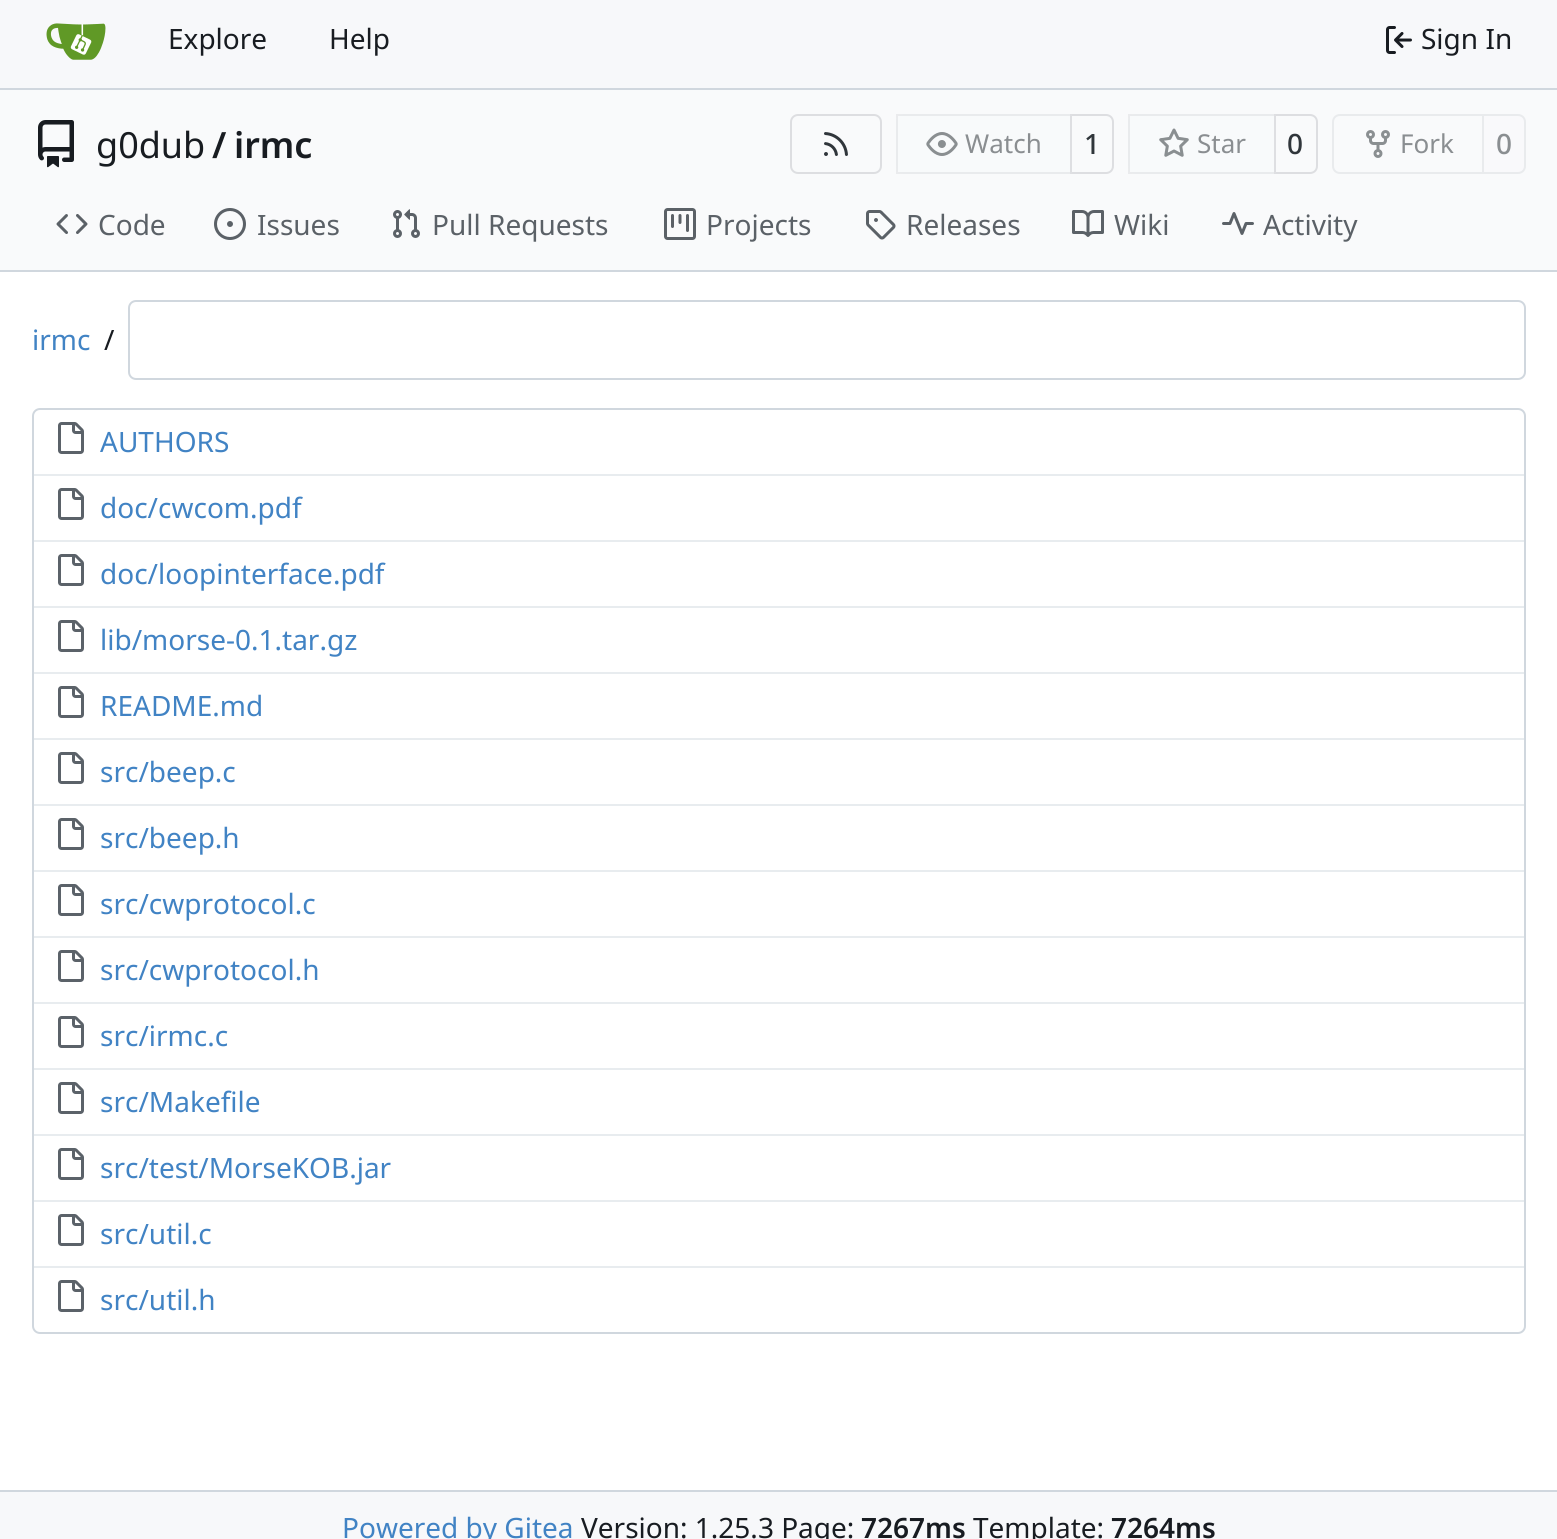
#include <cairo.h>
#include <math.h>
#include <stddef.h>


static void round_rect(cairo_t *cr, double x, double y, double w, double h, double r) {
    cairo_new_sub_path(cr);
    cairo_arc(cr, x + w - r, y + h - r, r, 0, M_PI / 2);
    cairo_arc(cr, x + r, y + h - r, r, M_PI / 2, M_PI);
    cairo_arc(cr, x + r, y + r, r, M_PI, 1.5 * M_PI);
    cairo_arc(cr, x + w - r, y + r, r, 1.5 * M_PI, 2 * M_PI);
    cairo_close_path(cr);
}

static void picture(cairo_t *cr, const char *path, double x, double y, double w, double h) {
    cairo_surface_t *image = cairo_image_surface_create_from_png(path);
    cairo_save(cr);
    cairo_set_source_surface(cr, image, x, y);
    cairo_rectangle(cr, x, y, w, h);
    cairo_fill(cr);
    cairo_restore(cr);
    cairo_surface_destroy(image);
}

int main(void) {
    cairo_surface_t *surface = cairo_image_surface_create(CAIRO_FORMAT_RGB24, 1557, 1539);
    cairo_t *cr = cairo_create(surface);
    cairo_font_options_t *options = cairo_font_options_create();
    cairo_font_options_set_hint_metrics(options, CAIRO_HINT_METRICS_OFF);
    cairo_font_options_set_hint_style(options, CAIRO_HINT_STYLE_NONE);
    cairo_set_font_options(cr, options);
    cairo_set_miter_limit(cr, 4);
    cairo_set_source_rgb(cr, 1, 1, 1);
    cairo_paint(cr);
    cairo_set_source_rgb(cr, 0.965, 0.969, 0.98);
    cairo_rectangle(cr, 0, 0, 1557, 88);
    cairo_fill(cr);
    cairo_set_source_rgb(cr, 0.816, 0.843, 0.871);
    cairo_rectangle(cr, 0, 88, 1557, 2);
    cairo_fill(cr);
    picture(cr, "img1.png", 46, 23, 60, 37);
    cairo_select_font_face(cr, "Noto Sans", CAIRO_FONT_SLANT_NORMAL, CAIRO_FONT_WEIGHT_NORMAL);
    cairo_set_font_size(cr, 28);
    cairo_set_source_rgb(cr, 0.094, 0.11, 0.129);
    cairo_move_to(cr, 168, 49);
    cairo_show_text(cr, "Explore");
    cairo_move_to(cr, 329, 49);
    cairo_show_text(cr, "Help");
    picture(cr, "img2.png", 1386, 26, 26, 28);
    cairo_move_to(cr, 1421, 49);
    cairo_show_text(cr, "Sign In");
    cairo_set_source_rgb(cr, 0.976, 0.98, 0.984);
    cairo_rectangle(cr, 0, 90, 1557, 180);
    cairo_fill(cr);
    picture(cr, "img3.png", 38, 120, 36, 48);
    cairo_set_font_size(cr, 36);
    cairo_set_source_rgb(cr, 0.094, 0.11, 0.129);
    cairo_move_to(cr, 96, 158);
    cairo_show_text(cr, "g0dub");
    cairo_select_font_face(cr, "Noto Sans SemiBold", CAIRO_FONT_SLANT_NORMAL, CAIRO_FONT_WEIGHT_NORMAL);
    cairo_move_to(cr, 212, 158);
    cairo_show_text(cr, "/");
    cairo_move_to(cr, 234, 158);
    cairo_show_text(cr, "irmc");
    round_rect(cr, 791, 115, 90, 58, 7);
    cairo_set_source_rgb(cr, 0.867, 0.871, 0.882);
    cairo_stroke(cr);
    picture(cr, "img4.png", 824, 132, 24, 24);
    cairo_new_path(cr);
    cairo_move_to(cr, 1071, 115);
    cairo_line_to(cr, 1106, 115);
    cairo_curve_to(cr, 1110, 115, 1113, 118, 1113, 122);
    cairo_line_to(cr, 1113, 166);
    cairo_curve_to(cr, 1113, 170, 1110, 173, 1106, 173);
    cairo_line_to(cr, 1071, 173);
    cairo_close_path(cr);
    cairo_stroke(cr);
    cairo_set_source_rgba(cr, 0.973, 0.976, 0.984, 0.55);
    cairo_new_path(cr);
    cairo_move_to(cr, 904, 114);
    cairo_line_to(cr, 1072, 114);
    cairo_line_to(cr, 1072, 174);
    cairo_line_to(cr, 904, 174);
    cairo_curve_to(cr, 899.5, 174, 896, 170.5, 896, 166);
    cairo_line_to(cr, 896, 122);
    cairo_curve_to(cr, 896, 117.5, 899.5, 114, 904, 114);
    cairo_close_path(cr);
    cairo_fill(cr);
    cairo_rectangle(cr, 897, 115, 174, 58);
    cairo_set_source_rgba(cr, 0, 0, 0.09, 0.06);
    cairo_stroke(cr);
    picture(cr, "img5.png", 926, 132, 32, 24);
    cairo_select_font_face(cr, "Noto Sans", CAIRO_FONT_SLANT_NORMAL, CAIRO_FONT_WEIGHT_NORMAL);
    cairo_set_font_size(cr, 26);
    cairo_set_source_rgb(cr, 0.541, 0.557, 0.569);
    cairo_move_to(cr, 965, 153);
    cairo_show_text(cr, "Watch");
    cairo_select_font_face(cr, "Noto Sans Medium", CAIRO_FONT_SLANT_NORMAL, CAIRO_FONT_WEIGHT_NORMAL);
    cairo_set_font_size(cr, 28);
    cairo_set_source_rgb(cr, 0.188, 0.212, 0.231);
    cairo_move_to(cr, 1084, 154);
    cairo_show_text(cr, "1");
    cairo_new_path(cr);
    cairo_move_to(cr, 1275, 115);
    cairo_line_to(cr, 1310, 115);
    cairo_curve_to(cr, 1314, 115, 1317, 118, 1317, 122);
    cairo_line_to(cr, 1317, 166);
    cairo_curve_to(cr, 1317, 170, 1314, 173, 1310, 173);
    cairo_line_to(cr, 1275, 173);
    cairo_close_path(cr);
    cairo_set_source_rgb(cr, 0.867, 0.871, 0.882);
    cairo_stroke(cr);
    cairo_set_source_rgba(cr, 0.973, 0.976, 0.984, 0.55);
    cairo_new_path(cr);
    cairo_move_to(cr, 1136, 114);
    cairo_line_to(cr, 1276, 114);
    cairo_line_to(cr, 1276, 174);
    cairo_line_to(cr, 1136, 174);
    cairo_curve_to(cr, 1131.5, 174, 1128, 170.5, 1128, 166);
    cairo_line_to(cr, 1128, 122);
    cairo_curve_to(cr, 1128, 117.5, 1131.5, 114, 1136, 114);
    cairo_close_path(cr);
    cairo_fill(cr);
    cairo_rectangle(cr, 1129, 115, 146, 58);
    cairo_set_source_rgba(cr, 0, 0, 0.09, 0.06);
    cairo_stroke(cr);
    picture(cr, "img6.png", 1159, 128, 30, 29);
    cairo_select_font_face(cr, "Noto Sans", CAIRO_FONT_SLANT_NORMAL, CAIRO_FONT_WEIGHT_NORMAL);
    cairo_set_font_size(cr, 26);
    cairo_set_source_rgb(cr, 0.541, 0.557, 0.569);
    cairo_move_to(cr, 1197, 153);
    cairo_show_text(cr, "Star");
    cairo_select_font_face(cr, "Noto Sans Medium", CAIRO_FONT_SLANT_NORMAL, CAIRO_FONT_WEIGHT_NORMAL);
    cairo_set_font_size(cr, 28);
    cairo_set_source_rgb(cr, 0.188, 0.212, 0.231);
    cairo_move_to(cr, 1287, 154);
    cairo_show_text(cr, "0");
    cairo_new_path(cr);
    cairo_move_to(cr, 1340, 115);
    cairo_line_to(cr, 1483, 115);
    cairo_line_to(cr, 1483, 173);
    cairo_line_to(cr, 1340, 173);
    cairo_curve_to(cr, 1336, 173, 1333, 170, 1333, 166);
    cairo_line_to(cr, 1333, 122);
    cairo_curve_to(cr, 1333, 118, 1336, 115, 1340, 115);
    cairo_close_path(cr);
    cairo_set_source_rgb(cr, 0.914, 0.918, 0.929);
    cairo_stroke(cr);
    picture(cr, "img7.png", 1366, 130, 24, 28);
    cairo_select_font_face(cr, "Noto Sans", CAIRO_FONT_SLANT_NORMAL, CAIRO_FONT_WEIGHT_NORMAL);
    cairo_set_font_size(cr, 26);
    cairo_set_source_rgb(cr, 0.541, 0.557, 0.569);
    cairo_move_to(cr, 1400, 153);
    cairo_show_text(cr, "Fork");
    cairo_set_source_rgb(cr, 0.973, 0.976, 0.984);
    cairo_new_path(cr);
    cairo_move_to(cr, 1483, 115);
    cairo_line_to(cr, 1518, 115);
    cairo_curve_to(cr, 1522, 115, 1525, 118, 1525, 122);
    cairo_line_to(cr, 1525, 166);
    cairo_curve_to(cr, 1525, 170, 1522, 173, 1518, 173);
    cairo_line_to(cr, 1483, 173);
    cairo_close_path(cr);
    cairo_fill_preserve(cr);
    cairo_set_source_rgb(cr, 0.914, 0.918, 0.929);
    cairo_stroke(cr);
    cairo_select_font_face(cr, "Noto Sans Medium", CAIRO_FONT_SLANT_NORMAL, CAIRO_FONT_WEIGHT_NORMAL);
    cairo_set_font_size(cr, 28);
    cairo_set_source_rgb(cr, 0.541, 0.557, 0.569);
    cairo_move_to(cr, 1496, 154);
    cairo_show_text(cr, "0");
    picture(cr, "img8.png", 56, 214, 32, 20);
    cairo_select_font_face(cr, "Noto Sans", CAIRO_FONT_SLANT_NORMAL, CAIRO_FONT_WEIGHT_NORMAL);
    cairo_set_source_rgb(cr, 0.357, 0.38, 0.404);
    cairo_move_to(cr, 98, 235);
    cairo_show_text(cr, "Code");
    picture(cr, "img9.png", 214, 208, 32, 32);
    cairo_move_to(cr, 257, 235);
    cairo_show_text(cr, "Issues");
    picture(cr, "img10.png", 393, 209, 27, 29);
    cairo_move_to(cr, 432, 235);
    cairo_show_text(cr, "Pull Requests");
    picture(cr, "img11.png", 664, 208, 32, 32);
    cairo_move_to(cr, 706, 235);
    cairo_show_text(cr, "Projects");
    picture(cr, "img12.png", 866, 210, 30, 30);
    cairo_move_to(cr, 906, 235);
    cairo_show_text(cr, "Releases");
    picture(cr, "img13.png", 1072, 210, 32, 27);
    cairo_move_to(cr, 1114, 235);
    cairo_show_text(cr, "Wiki");
    picture(cr, "img14.png", 1222, 212, 32, 23);
    cairo_move_to(cr, 1263, 235);
    cairo_show_text(cr, "Activity");
    cairo_set_source_rgb(cr, 0.816, 0.843, 0.871);
    cairo_rectangle(cr, 0, 270, 1557, 2);
    cairo_fill(cr);
    cairo_set_source_rgb(cr, 0.255, 0.514, 0.769);
    cairo_move_to(cr, 32, 350);
    cairo_show_text(cr, "irmc");
    cairo_set_source_rgb(cr, 0.094, 0.11, 0.129);
    cairo_move_to(cr, 104, 350);
    cairo_show_text(cr, "/");
    round_rect(cr, 129, 301, 1396, 78, 7);
    cairo_set_source_rgb(cr, 0.816, 0.843, 0.871);
    cairo_stroke(cr);
    round_rect(cr, 33, 409, 1492, 924, 7);
    cairo_stroke(cr);
    picture(cr, "img15.png", 58, 422, 26, 32);
    cairo_set_source_rgb(cr, 0.255, 0.514, 0.769);
    cairo_move_to(cr, 100, 452);
    cairo_show_text(cr, "AUTHORS");
    cairo_set_source_rgb(cr, 0.91, 0.922, 0.937);
    cairo_rectangle(cr, 34, 474, 1490, 2);
    cairo_fill(cr);
    picture(cr, "img15.png", 58, 488, 26, 32);
    cairo_set_source_rgb(cr, 0.255, 0.514, 0.769);
    cairo_move_to(cr, 100, 518);
    cairo_show_text(cr, "doc/cwcom.pdf");
    cairo_set_source_rgb(cr, 0.91, 0.922, 0.937);
    cairo_rectangle(cr, 34, 540, 1490, 2);
    cairo_fill(cr);
    picture(cr, "img15.png", 58, 554, 26, 32);
    cairo_set_source_rgb(cr, 0.255, 0.514, 0.769);
    cairo_move_to(cr, 100, 584);
    cairo_show_text(cr, "doc/loopinterface.pdf");
    cairo_set_source_rgb(cr, 0.91, 0.922, 0.937);
    cairo_rectangle(cr, 34, 606, 1490, 2);
    cairo_fill(cr);
    picture(cr, "img15.png", 58, 620, 26, 32);
    cairo_set_source_rgb(cr, 0.255, 0.514, 0.769);
    cairo_move_to(cr, 100, 650);
    cairo_show_text(cr, "lib/morse-0.1.tar.gz");
    cairo_set_source_rgb(cr, 0.91, 0.922, 0.937);
    cairo_rectangle(cr, 34, 672, 1490, 2);
    cairo_fill(cr);
    picture(cr, "img15.png", 58, 686, 26, 32);
    cairo_set_source_rgb(cr, 0.255, 0.514, 0.769);
    cairo_move_to(cr, 100, 716);
    cairo_show_text(cr, "README.md");
    cairo_set_source_rgb(cr, 0.91, 0.922, 0.937);
    cairo_rectangle(cr, 34, 738, 1490, 2);
    cairo_fill(cr);
    picture(cr, "img15.png", 58, 752, 26, 32);
    cairo_set_source_rgb(cr, 0.255, 0.514, 0.769);
    cairo_move_to(cr, 100, 782);
    cairo_show_text(cr, "src/beep.c");
    cairo_set_source_rgb(cr, 0.91, 0.922, 0.937);
    cairo_rectangle(cr, 34, 804, 1490, 2);
    cairo_fill(cr);
    picture(cr, "img15.png", 58, 818, 26, 32);
    cairo_set_source_rgb(cr, 0.255, 0.514, 0.769);
    cairo_move_to(cr, 100, 848);
    cairo_show_text(cr, "src/beep.h");
    cairo_set_source_rgb(cr, 0.91, 0.922, 0.937);
    cairo_rectangle(cr, 34, 870, 1490, 2);
    cairo_fill(cr);
    picture(cr, "img15.png", 58, 884, 26, 32);
    cairo_set_source_rgb(cr, 0.255, 0.514, 0.769);
    cairo_move_to(cr, 100, 914);
    cairo_show_text(cr, "src/cwprotocol.c");
    cairo_set_source_rgb(cr, 0.91, 0.922, 0.937);
    cairo_rectangle(cr, 34, 936, 1490, 2);
    cairo_fill(cr);
    picture(cr, "img15.png", 58, 950, 26, 32);
    cairo_set_source_rgb(cr, 0.255, 0.514, 0.769);
    cairo_move_to(cr, 100, 980);
    cairo_show_text(cr, "src/cwprotocol.h");
    cairo_set_source_rgb(cr, 0.91, 0.922, 0.937);
    cairo_rectangle(cr, 34, 1002, 1490, 2);
    cairo_fill(cr);
    picture(cr, "img15.png", 58, 1016, 26, 32);
    cairo_set_source_rgb(cr, 0.255, 0.514, 0.769);
    cairo_move_to(cr, 100, 1046);
    cairo_show_text(cr, "src/irmc.c");
    cairo_set_source_rgb(cr, 0.91, 0.922, 0.937);
    cairo_rectangle(cr, 34, 1068, 1490, 2);
    cairo_fill(cr);
    picture(cr, "img15.png", 58, 1082, 26, 32);
    cairo_set_source_rgb(cr, 0.255, 0.514, 0.769);
    cairo_move_to(cr, 100, 1112);
    cairo_show_text(cr, "src/Makefile");
    cairo_set_source_rgb(cr, 0.91, 0.922, 0.937);
    cairo_rectangle(cr, 34, 1134, 1490, 2);
    cairo_fill(cr);
    picture(cr, "img15.png", 58, 1148, 26, 32);
    cairo_set_source_rgb(cr, 0.255, 0.514, 0.769);
    cairo_move_to(cr, 100, 1178);
    cairo_show_text(cr, "src/test/MorseKOB.jar");
    cairo_set_source_rgb(cr, 0.91, 0.922, 0.937);
    cairo_rectangle(cr, 34, 1200, 1490, 2);
    cairo_fill(cr);
    picture(cr, "img15.png", 58, 1214, 26, 32);
    cairo_set_source_rgb(cr, 0.255, 0.514, 0.769);
    cairo_move_to(cr, 100, 1244);
    cairo_show_text(cr, "src/util.c");
    cairo_set_source_rgb(cr, 0.91, 0.922, 0.937);
    cairo_rectangle(cr, 34, 1266, 1490, 2);
    cairo_fill(cr);
    picture(cr, "img15.png", 58, 1280, 26, 32);
    cairo_set_source_rgb(cr, 0.255, 0.514, 0.769);
    cairo_move_to(cr, 100, 1310);
    cairo_show_text(cr, "src/util.h");
    cairo_set_source_rgb(cr, 0.965, 0.969, 0.98);
    cairo_rectangle(cr, 0, 1492, 1557, 47);
    cairo_fill(cr);
    cairo_set_source_rgb(cr, 0.816, 0.843, 0.871);
    cairo_rectangle(cr, 0, 1490, 1557, 2);
    cairo_fill(cr);
    cairo_set_source_rgb(cr, 0.255, 0.514, 0.769);
    cairo_move_to(cr, 342, 1538);
    cairo_show_text(cr, "Powered by Gitea");
    cairo_set_source_rgb(cr, 0.094, 0.11, 0.129);
    cairo_move_to(cr, 581, 1538);
    cairo_show_text(cr, "Version: 1.25.3 Page:");
    cairo_select_font_face(cr, "Noto Sans SemiBold", CAIRO_FONT_SLANT_NORMAL, CAIRO_FONT_WEIGHT_NORMAL);
    cairo_move_to(cr, 861, 1538);
    cairo_show_text(cr, "7267ms");
    cairo_select_font_face(cr, "Noto Sans", CAIRO_FONT_SLANT_NORMAL, CAIRO_FONT_WEIGHT_NORMAL);
    cairo_move_to(cr, 973, 1538);
    cairo_show_text(cr, "Template:");
    cairo_select_font_face(cr, "Noto Sans SemiBold", CAIRO_FONT_SLANT_NORMAL, CAIRO_FONT_WEIGHT_NORMAL);
    cairo_move_to(cr, 1111, 1538);
    cairo_show_text(cr, "7264ms");
    cairo_surface_write_to_png(surface, "page.png");
    cairo_font_options_destroy(options);
    cairo_destroy(cr);
    cairo_surface_destroy(surface);
    return 0;
}
